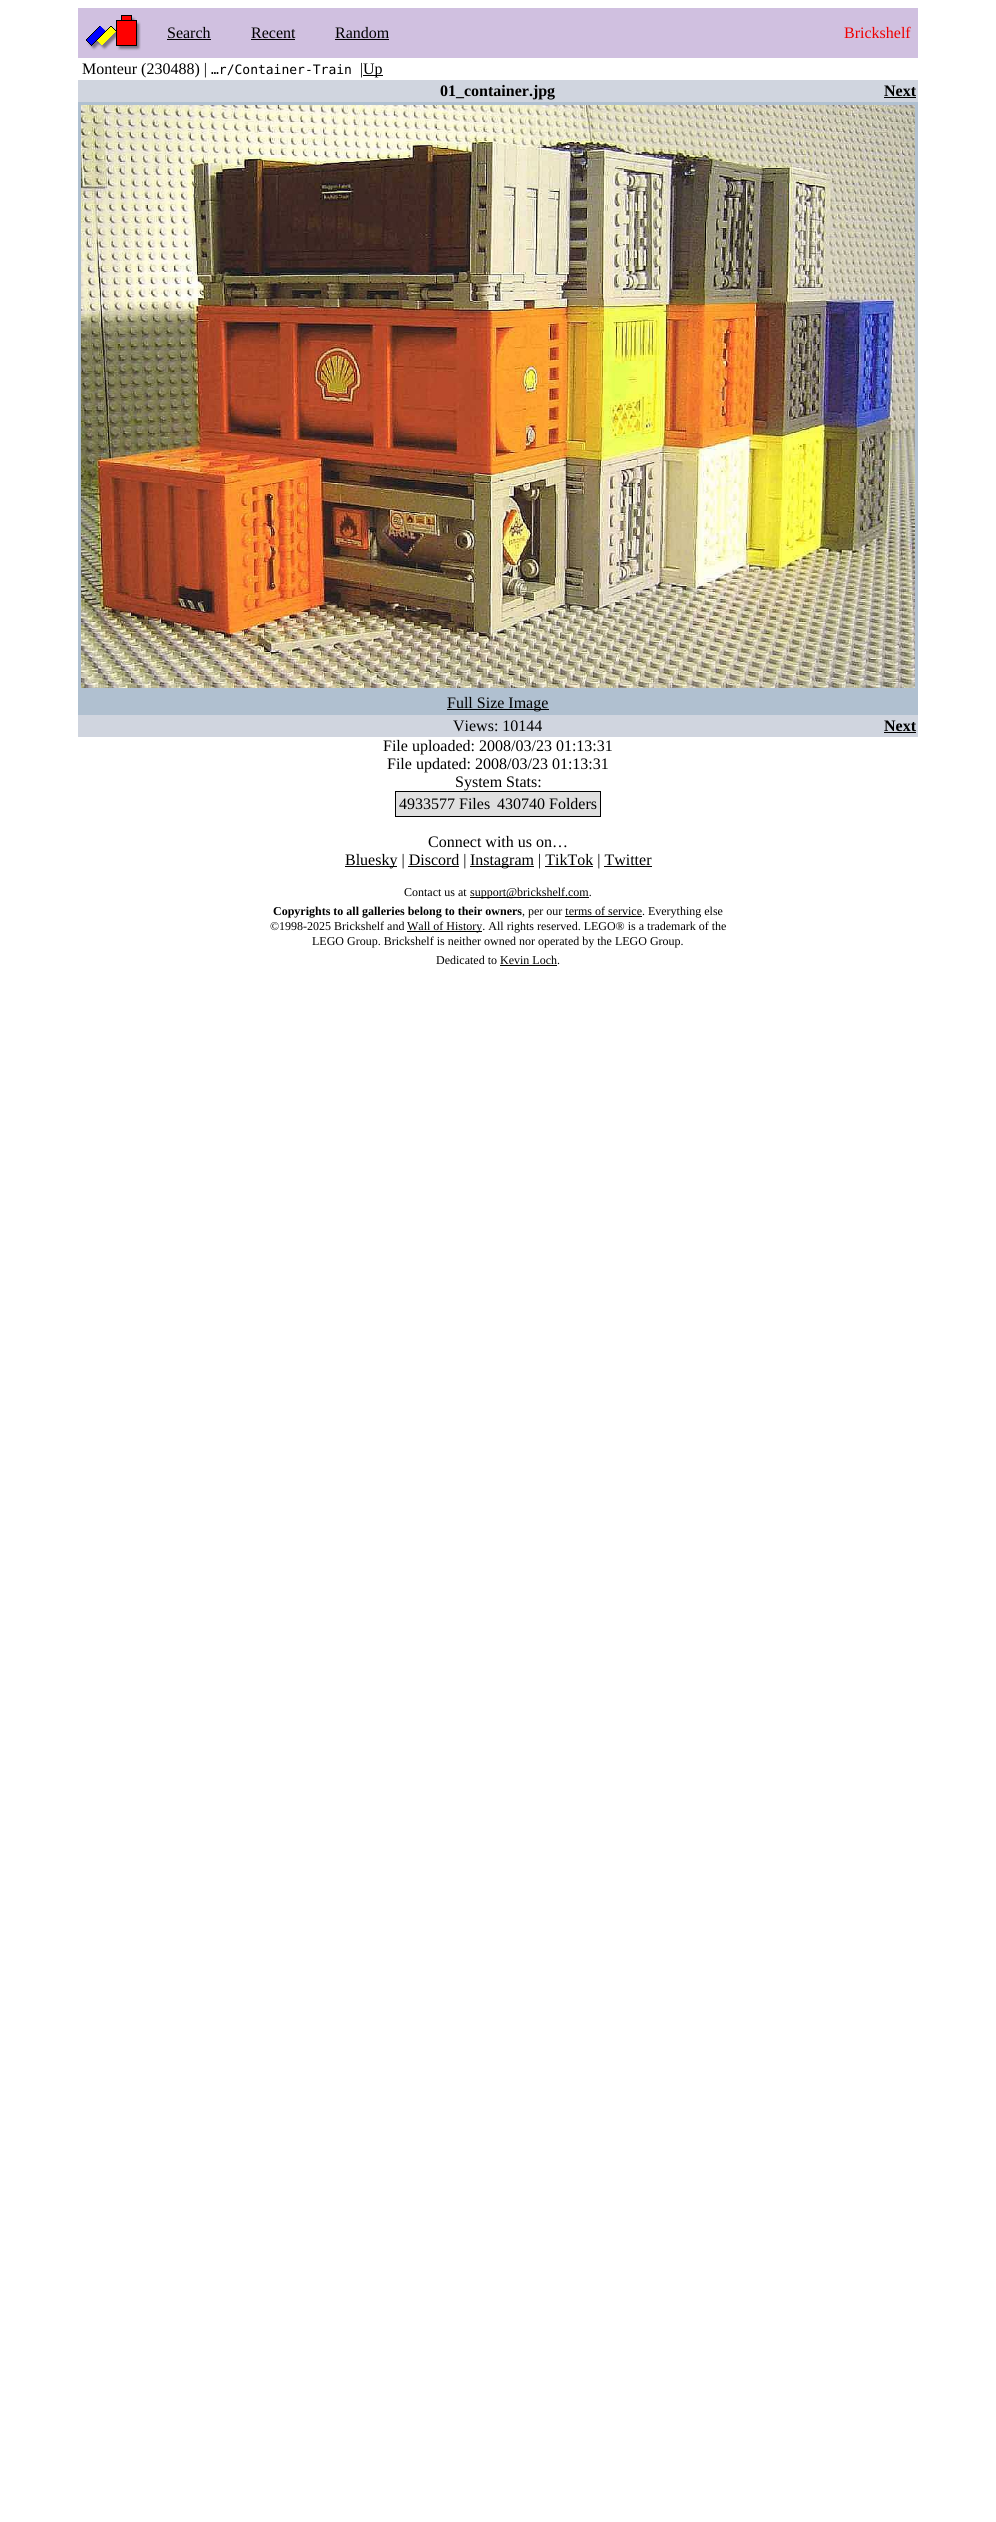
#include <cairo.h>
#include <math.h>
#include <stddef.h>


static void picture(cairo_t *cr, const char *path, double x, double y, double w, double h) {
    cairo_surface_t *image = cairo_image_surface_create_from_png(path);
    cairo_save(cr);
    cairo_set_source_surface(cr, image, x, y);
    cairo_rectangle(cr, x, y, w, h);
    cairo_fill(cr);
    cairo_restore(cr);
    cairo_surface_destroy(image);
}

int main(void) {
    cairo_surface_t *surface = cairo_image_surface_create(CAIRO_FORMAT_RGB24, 996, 2522);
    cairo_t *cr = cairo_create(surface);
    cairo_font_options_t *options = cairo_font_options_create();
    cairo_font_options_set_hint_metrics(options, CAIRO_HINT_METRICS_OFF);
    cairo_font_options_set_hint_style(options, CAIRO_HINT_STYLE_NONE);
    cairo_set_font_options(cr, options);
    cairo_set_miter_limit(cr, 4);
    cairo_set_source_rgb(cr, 1, 1, 1);
    cairo_paint(cr);
    cairo_set_source_rgb(cr, 0.816, 0.753, 0.878);
    cairo_rectangle(cr, 78, 8, 840, 50);
    cairo_fill(cr);
    picture(cr, "img1.png", 86, 15, 55, 36);
    cairo_select_font_face(cr, "Liberation Serif", CAIRO_FONT_SLANT_NORMAL, CAIRO_FONT_WEIGHT_NORMAL);
    cairo_set_font_size(cr, 16);
    cairo_set_source_rgb(cr, 0, 0, 0);
    cairo_move_to(cr, 167, 38);
    cairo_show_text(cr, "Search");
    cairo_rectangle(cr, 167, 39, 44, 1);
    cairo_fill(cr);
    cairo_move_to(cr, 251, 38);
    cairo_show_text(cr, "Recent");
    cairo_rectangle(cr, 251, 39, 44, 1);
    cairo_fill(cr);
    cairo_move_to(cr, 335, 38);
    cairo_show_text(cr, "Random");
    cairo_rectangle(cr, 335, 39, 54, 1);
    cairo_fill(cr);
    cairo_set_source_rgb(cr, 0.937, 0, 0);
    cairo_move_to(cr, 844, 38);
    cairo_show_text(cr, "Brickshelf");
    cairo_set_source_rgb(cr, 0, 0, 0);
    cairo_move_to(cr, 82, 74);
    cairo_show_text(cr, "Monteur (230488) |");
    cairo_select_font_face(cr, "DejaVu Sans Mono", CAIRO_FONT_SLANT_NORMAL, CAIRO_FONT_WEIGHT_NORMAL);
    cairo_set_font_size(cr, 13);
    cairo_move_to(cr, 211, 74);
    cairo_show_text(cr, "…r/Container-Train");
    cairo_select_font_face(cr, "Liberation Serif", CAIRO_FONT_SLANT_NORMAL, CAIRO_FONT_WEIGHT_NORMAL);
    cairo_set_font_size(cr, 16);
    cairo_move_to(cr, 360, 74);
    cairo_show_text(cr, "|");
    cairo_rectangle(cr, 363, 75, 20, 1);
    cairo_fill(cr);
    cairo_move_to(cr, 363, 74);
    cairo_show_text(cr, "Up");
    cairo_set_source_rgb(cr, 0.816, 0.835, 0.875);
    cairo_rectangle(cr, 78, 80, 840, 22);
    cairo_fill(cr);
    cairo_select_font_face(cr, "Liberation Serif", CAIRO_FONT_SLANT_NORMAL, CAIRO_FONT_WEIGHT_BOLD);
    cairo_set_source_rgb(cr, 0, 0, 0);
    cairo_move_to(cr, 440, 96);
    cairo_show_text(cr, "01_container.jpg");
    cairo_move_to(cr, 884, 96);
    cairo_show_text(cr, "Next");
    cairo_rectangle(cr, 884, 97, 32, 1);
    cairo_fill(cr);
    cairo_set_source_rgb(cr, 0.69, 0.753, 0.816);
    cairo_rectangle(cr, 78, 102, 840, 613);
    cairo_fill(cr);
    picture(cr, "img2.png", 81, 105, 834, 583);
    cairo_set_source_rgb(cr, 0, 0, 0);
    cairo_rectangle(cr, 447, 709, 102, 1);
    cairo_fill(cr);
    cairo_select_font_face(cr, "Liberation Serif", CAIRO_FONT_SLANT_NORMAL, CAIRO_FONT_WEIGHT_NORMAL);
    cairo_move_to(cr, 447, 708);
    cairo_show_text(cr, "Full Size Image");
    cairo_set_source_rgb(cr, 0.816, 0.835, 0.875);
    cairo_rectangle(cr, 78, 715, 840, 22);
    cairo_fill(cr);
    cairo_set_source_rgb(cr, 0, 0, 0);
    cairo_move_to(cr, 453, 731);
    cairo_show_text(cr, "Views: 10144");
    cairo_select_font_face(cr, "Liberation Serif", CAIRO_FONT_SLANT_NORMAL, CAIRO_FONT_WEIGHT_BOLD);
    cairo_move_to(cr, 884, 731);
    cairo_show_text(cr, "Next");
    cairo_rectangle(cr, 884, 732, 32, 1);
    cairo_fill(cr);
    cairo_select_font_face(cr, "Liberation Serif", CAIRO_FONT_SLANT_NORMAL, CAIRO_FONT_WEIGHT_NORMAL);
    cairo_move_to(cr, 383, 751);
    cairo_show_text(cr, "File uploaded: 2008/03/23 01:13:31");
    cairo_move_to(cr, 387, 769);
    cairo_show_text(cr, "File updated: 2008/03/23 01:13:31");
    cairo_move_to(cr, 455, 787);
    cairo_show_text(cr, "System Stats:");
    cairo_set_source_rgb(cr, 0.878, 0.878, 0.878);
    cairo_rectangle(cr, 395.5, 791.5, 205, 25);
    cairo_fill_preserve(cr);
    cairo_set_source_rgb(cr, 0, 0, 0);
    cairo_set_line_width(cr, 1);
    cairo_stroke(cr);
    cairo_move_to(cr, 399, 809);
    cairo_show_text(cr, "4933577 Files");
    cairo_move_to(cr, 497, 809);
    cairo_show_text(cr, "430740 Folders");
    cairo_move_to(cr, 428, 847);
    cairo_show_text(cr, "Connect with us on…");
    cairo_rectangle(cr, 345, 866, 52, 1);
    cairo_fill(cr);
    cairo_move_to(cr, 345, 865);
    cairo_show_text(cr, "Bluesky | Discord |");
    cairo_rectangle(cr, 470, 866, 64, 1);
    cairo_fill(cr);
    cairo_move_to(cr, 470, 865);
    cairo_show_text(cr, "Instagram | TikTok | Twitter");
    cairo_rectangle(cr, 408, 866, 51, 1);
    cairo_fill(cr);
    cairo_rectangle(cr, 545, 866, 48, 1);
    cairo_fill(cr);
    cairo_rectangle(cr, 604, 866, 48, 1);
    cairo_fill(cr);
    cairo_set_font_size(cr, 12);
    cairo_move_to(cr, 404, 896);
    cairo_show_text(cr, "Contact us at");
    cairo_rectangle(cr, 470, 897, 119, 1);
    cairo_fill(cr);
    cairo_move_to(cr, 470, 896);
    cairo_show_text(cr, "support@brickshelf.com.");
    cairo_select_font_face(cr, "Liberation Serif", CAIRO_FONT_SLANT_NORMAL, CAIRO_FONT_WEIGHT_BOLD);
    cairo_move_to(cr, 273, 915);
    cairo_show_text(cr, "Copyrights to all galleries belong to their owners");
    cairo_select_font_face(cr, "Liberation Serif", CAIRO_FONT_SLANT_NORMAL, CAIRO_FONT_WEIGHT_NORMAL);
    cairo_move_to(cr, 522, 915);
    cairo_show_text(cr, ", per our terms of service. Everything else");
    cairo_rectangle(cr, 565, 916, 77, 1);
    cairo_fill(cr);
    cairo_move_to(cr, 270, 930);
    cairo_show_text(cr, "©1998-2025 Brickshelf and");
    cairo_rectangle(cr, 407, 931, 75, 1);
    cairo_fill(cr);
    cairo_move_to(cr, 407, 930);
    cairo_show_text(cr, "Wall of History. All rights reserved. LEGO® is a trademark of the");
    cairo_move_to(cr, 312, 945);
    cairo_show_text(cr, "LEGO Group. Brickshelf is neither owned nor operated by the LEGO Group.");
    cairo_move_to(cr, 436, 964);
    cairo_show_text(cr, "Dedicated to Kevin Loch.");
    cairo_rectangle(cr, 500, 965, 57, 1);
    cairo_fill(cr);
    cairo_surface_write_to_png(surface, "page.png");
    cairo_font_options_destroy(options);
    cairo_destroy(cr);
    cairo_surface_destroy(surface);
    return 0;
}
